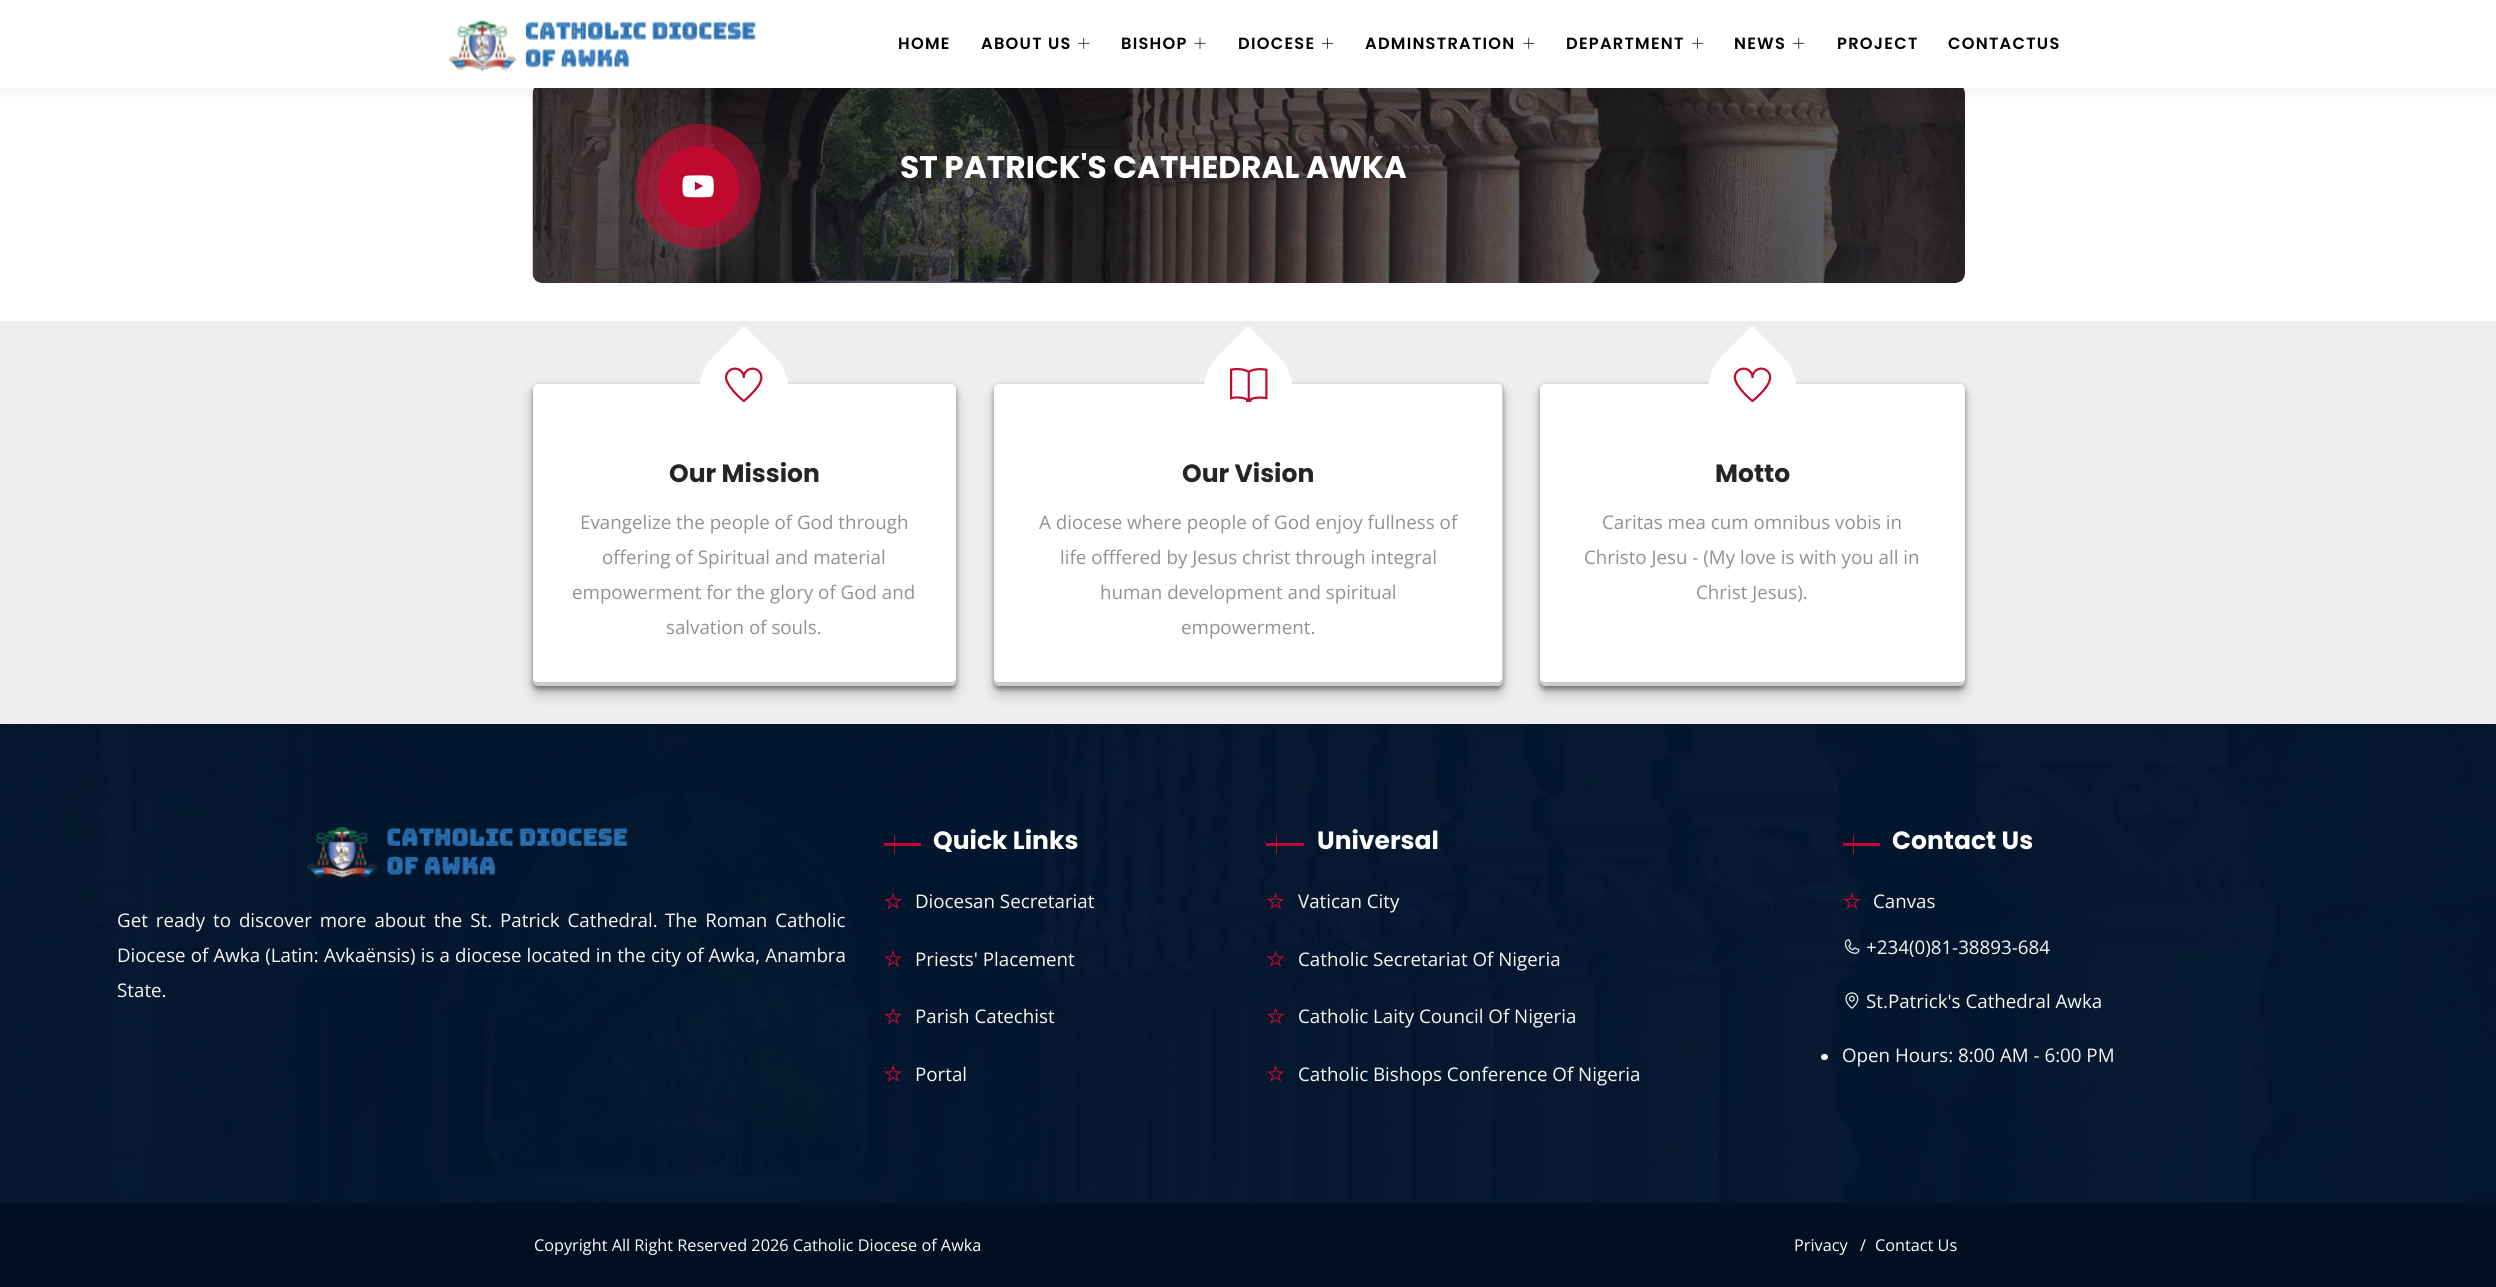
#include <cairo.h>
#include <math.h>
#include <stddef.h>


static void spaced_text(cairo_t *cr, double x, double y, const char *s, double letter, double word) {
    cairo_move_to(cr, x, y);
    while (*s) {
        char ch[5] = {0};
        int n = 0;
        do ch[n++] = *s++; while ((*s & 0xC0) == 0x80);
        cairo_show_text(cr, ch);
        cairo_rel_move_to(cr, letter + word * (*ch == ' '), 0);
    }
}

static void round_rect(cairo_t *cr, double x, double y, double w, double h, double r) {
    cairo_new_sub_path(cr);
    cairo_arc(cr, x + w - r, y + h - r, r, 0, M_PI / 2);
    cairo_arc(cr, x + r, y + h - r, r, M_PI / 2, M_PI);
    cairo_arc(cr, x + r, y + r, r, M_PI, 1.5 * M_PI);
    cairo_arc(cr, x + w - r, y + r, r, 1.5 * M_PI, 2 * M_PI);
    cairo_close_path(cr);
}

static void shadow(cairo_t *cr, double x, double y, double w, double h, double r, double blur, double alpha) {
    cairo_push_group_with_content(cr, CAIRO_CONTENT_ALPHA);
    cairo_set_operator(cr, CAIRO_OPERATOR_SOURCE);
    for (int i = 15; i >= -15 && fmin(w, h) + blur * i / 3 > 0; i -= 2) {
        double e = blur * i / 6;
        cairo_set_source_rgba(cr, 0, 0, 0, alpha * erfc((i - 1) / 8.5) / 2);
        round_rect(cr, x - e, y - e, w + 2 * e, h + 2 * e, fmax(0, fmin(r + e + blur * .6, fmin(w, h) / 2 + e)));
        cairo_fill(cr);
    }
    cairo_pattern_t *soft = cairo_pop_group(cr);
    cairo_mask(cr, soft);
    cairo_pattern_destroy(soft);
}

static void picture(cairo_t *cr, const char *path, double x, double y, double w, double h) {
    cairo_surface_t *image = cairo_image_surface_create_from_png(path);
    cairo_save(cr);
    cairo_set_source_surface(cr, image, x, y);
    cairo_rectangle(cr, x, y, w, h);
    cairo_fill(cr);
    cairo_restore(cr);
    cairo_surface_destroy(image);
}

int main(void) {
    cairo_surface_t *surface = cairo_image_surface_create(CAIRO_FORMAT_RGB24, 2496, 1287);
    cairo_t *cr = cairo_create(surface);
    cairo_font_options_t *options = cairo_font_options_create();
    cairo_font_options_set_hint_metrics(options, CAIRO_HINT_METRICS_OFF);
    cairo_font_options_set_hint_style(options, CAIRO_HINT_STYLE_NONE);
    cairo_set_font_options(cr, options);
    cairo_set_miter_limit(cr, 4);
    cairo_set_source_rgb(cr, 1, 1, 1);
    cairo_paint(cr);
    picture(cr, "img5.png", 532, 88, 1433, 195);
    cairo_set_source_rgb(cr, 0.671, 0.671, 0.671);
    shadow(cr, 673, 174, 51, 51, 25.5, 31, 0.63);
    cairo_set_source_rgb(cr, 0.749, 0.039, 0.188);
    round_rect(cr, 658, 146, 81, 82, 40.5);
    cairo_fill(cr);
    cairo_set_source_rgba(cr, 0.749, 0.039, 0.188, 0.6);
    cairo_arc(cr, 698.5, 186.5, 62.5, 0, 2 * M_PI);
    cairo_fill(cr);
    cairo_set_source_rgb(cr, 0, 0, 0);
    shadow(cr, 1, 1, 2494, 85, 0, 12.5, 0.1);
    cairo_set_source_rgb(cr, 1, 1, 1);
    cairo_rectangle(cr, 0, 0, 2496, 88);
    cairo_fill(cr);
    picture(cr, "img1.png", 449, 20, 307, 52);
    cairo_select_font_face(cr, "Poppins SemiBold", CAIRO_FONT_SLANT_NORMAL, CAIRO_FONT_WEIGHT_NORMAL);
    cairo_set_font_size(cr, 16.25);
    cairo_set_source_rgb(cr, 0, 0, 0);
    spaced_text(cr, 898, 49, "HOME", 1.25, 0);
    spaced_text(cr, 981, 49, "ABOUT US", 1.25, 0);
    picture(cr, "img2.png", 1078, 37, 12, 12);
    spaced_text(cr, 1121, 49, "BISHOP", 1.25, 0);
    picture(cr, "img3.png", 1194, 37, 12, 12);
    spaced_text(cr, 1238, 49, "DIOCESE", 1.25, 0);
    picture(cr, "img4.png", 1322, 37, 11, 12);
    spaced_text(cr, 1365, 49, "ADMINSTRATION", 1.25, 0);
    picture(cr, "img2.png", 1523, 37, 12, 12);
    spaced_text(cr, 1566, 49, "DEPARTMENT", 1.25, 0);
    picture(cr, "img4.png", 1692, 37, 11, 12);
    spaced_text(cr, 1734, 49, "NEWS", 1.25, 0);
    picture(cr, "img2.png", 1793, 37, 12, 12);
    spaced_text(cr, 1837, 49, "PROJECT", 1.25, 0);
    spaced_text(cr, 1948, 49, "CONTACTUS", 1.25, 0);
    picture(cr, "img6.png", 682, 175, 32, 23);
    cairo_select_font_face(cr, "Poppins", CAIRO_FONT_SLANT_NORMAL, CAIRO_FONT_WEIGHT_BOLD);
    cairo_set_font_size(cr, 31.25);
    cairo_set_source_rgb(cr, 1, 1, 1);
    cairo_move_to(cr, 900, 178);
    cairo_show_text(cr, "ST PATRICK'S CATHEDRAL AWKA");
    cairo_set_source_rgb(cr, 0.933, 0.933, 0.933);
    cairo_rectangle(cr, 0, 321, 2496, 403);
    cairo_fill(cr);
    cairo_set_source_rgb(cr, 0, 0, 0);
    shadow(cr, 536, 396, 417, 295, 1, 8, 0.3);
    shadow(cr, 533, 386, 423, 303, 5, 2.5, 0.4);
    cairo_set_source_rgb(cr, 1, 1, 1);
    round_rect(cr, 533, 384, 423, 302, 5);
    cairo_fill(cr);
    cairo_set_source_rgba(cr, 0, 0, 0, 0.2);
    cairo_new_path(cr);
    cairo_move_to(cr, 533, 680);
    cairo_line_to(cr, 533, 681);
    cairo_curve_to(cr, 533, 684, 535, 686, 538, 686);
    cairo_line_to(cr, 951, 686);
    cairo_curve_to(cr, 954, 686, 956, 684, 956, 681);
    cairo_line_to(cr, 956, 678);
    cairo_curve_to(cr, 956, 680, 954, 682, 951, 682);
    cairo_line_to(cr, 538, 682);
    cairo_curve_to(cr, 536, 682, 534, 681, 533, 680);
    cairo_close_path(cr);
    cairo_fill(cr);
    cairo_set_source_rgb(cr, 1, 1, 1);
    cairo_new_path(cr);
    cairo_move_to(cr, 744, 326);
    cairo_line_to(cr, 775, 357);
    cairo_curve_to(cr, 792, 374, 792, 402, 775, 419);
    cairo_curve_to(cr, 758, 436, 730, 436, 713, 419);
    cairo_curve_to(cr, 696, 402, 696, 374, 713, 357);
    cairo_close_path(cr);
    cairo_fill(cr);
    cairo_new_path(cr);
    cairo_move_to(cr, 744, 331.5);
    cairo_line_to(cr, 772.5, 360);
    cairo_curve_to(cr, 788, 375.5, 788, 401, 772.5, 416.5);
    cairo_curve_to(cr, 756.5, 432, 731.5, 432, 715.5, 416.5);
    cairo_curve_to(cr, 700, 401, 700, 375.5, 715.5, 360);
    cairo_close_path(cr);
    cairo_set_line_width(cr, 7.5);
    cairo_stroke(cr);
    picture(cr, "img7.png", 725, 367, 38, 36);
    cairo_set_font_size(cr, 25);
    cairo_set_source_rgb(cr, 0.145, 0.145, 0.145);
    cairo_move_to(cr, 669, 482);
    cairo_show_text(cr, "Our Mission");
    cairo_select_font_face(cr, "Open Sans", CAIRO_FONT_SLANT_NORMAL, CAIRO_FONT_WEIGHT_NORMAL);
    cairo_set_font_size(cr, 18.75);
    cairo_set_source_rgb(cr, 0.553, 0.573, 0.592);
    cairo_move_to(cr, 580, 529);
    cairo_show_text(cr, "Evangelize the people of God through");
    cairo_move_to(cr, 602, 564);
    cairo_show_text(cr, "offering of Spiritual and material");
    cairo_move_to(cr, 572, 599);
    cairo_show_text(cr, "empowerment for the glory of God and");
    cairo_move_to(cr, 666, 634);
    cairo_show_text(cr, "salvation of souls.");
    cairo_set_source_rgb(cr, 0, 0, 0);
    shadow(cr, 998, 396, 501, 295, 1, 8, 0.3);
    shadow(cr, 994, 386, 509, 303, 5, 2.5, 0.4);
    cairo_set_source_rgb(cr, 1, 1, 1);
    round_rect(cr, 994, 384, 509, 302, 5);
    cairo_fill(cr);
    cairo_set_source_rgba(cr, 0, 0, 0, 0.2);
    cairo_new_path(cr);
    cairo_move_to(cr, 994, 678);
    cairo_line_to(cr, 994, 681);
    cairo_curve_to(cr, 994, 684, 996, 686, 999, 686);
    cairo_line_to(cr, 1498, 686);
    cairo_curve_to(cr, 1501, 686, 1503, 684, 1503, 681);
    cairo_line_to(cr, 1503, 389);
    cairo_curve_to(cr, 1503, 388, 1503, 387, 1502, 386);
    cairo_line_to(cr, 1502, 678);
    cairo_curve_to(cr, 1502, 680, 1500, 682, 1498, 682);
    cairo_line_to(cr, 999, 682);
    cairo_curve_to(cr, 996, 682, 994, 680, 994, 678);
    cairo_close_path(cr);
    cairo_fill(cr);
    cairo_set_source_rgb(cr, 1, 1, 1);
    cairo_new_path(cr);
    cairo_move_to(cr, 1248, 326);
    cairo_line_to(cr, 1279, 357);
    cairo_curve_to(cr, 1296, 374, 1296, 402, 1279, 419);
    cairo_curve_to(cr, 1262, 436, 1234, 436, 1217, 419);
    cairo_curve_to(cr, 1200, 402, 1200, 374, 1217, 357);
    cairo_close_path(cr);
    cairo_fill(cr);
    cairo_new_path(cr);
    cairo_move_to(cr, 1248, 331.5);
    cairo_line_to(cr, 1276.5, 360);
    cairo_curve_to(cr, 1292, 375.5, 1292, 401, 1276.5, 416.5);
    cairo_curve_to(cr, 1261, 432, 1235.5, 432, 1220, 416.5);
    cairo_curve_to(cr, 1204, 401, 1204, 375.5, 1220, 360);
    cairo_close_path(cr);
    cairo_stroke(cr);
    picture(cr, "img8.png", 1230, 367, 38, 35);
    cairo_select_font_face(cr, "Poppins", CAIRO_FONT_SLANT_NORMAL, CAIRO_FONT_WEIGHT_BOLD);
    cairo_set_font_size(cr, 25);
    cairo_set_source_rgb(cr, 0.145, 0.145, 0.145);
    cairo_move_to(cr, 1182, 482);
    cairo_show_text(cr, "Our Vision");
    cairo_select_font_face(cr, "Open Sans", CAIRO_FONT_SLANT_NORMAL, CAIRO_FONT_WEIGHT_NORMAL);
    cairo_set_font_size(cr, 18.75);
    cairo_set_source_rgb(cr, 0.553, 0.573, 0.592);
    cairo_move_to(cr, 1039, 529);
    cairo_show_text(cr, "A diocese where people of God enjoy fullness of");
    cairo_move_to(cr, 1060, 564);
    cairo_show_text(cr, "life offfered by Jesus christ through integral");
    cairo_move_to(cr, 1100, 599);
    cairo_show_text(cr, "human development and spiritual");
    cairo_move_to(cr, 1181, 634);
    cairo_show_text(cr, "empowerment.");
    cairo_set_source_rgb(cr, 0, 0, 0);
    shadow(cr, 1544, 396, 417, 295, 1, 8, 0.3);
    shadow(cr, 1540, 386, 425, 303, 5, 2.5, 0.4);
    cairo_set_source_rgb(cr, 1, 1, 1);
    round_rect(cr, 1540, 384, 425, 302, 5);
    cairo_fill(cr);
    cairo_set_source_rgba(cr, 0, 0, 0, 0.2);
    cairo_new_path(cr);
    cairo_move_to(cr, 1540, 678);
    cairo_line_to(cr, 1540, 681);
    cairo_curve_to(cr, 1540, 684, 1542, 686, 1545, 686);
    cairo_line_to(cr, 1960, 686);
    cairo_curve_to(cr, 1963, 686, 1965, 684, 1965, 681);
    cairo_line_to(cr, 1965, 678);
    cairo_curve_to(cr, 1965, 680, 1963, 682, 1960, 682);
    cairo_line_to(cr, 1545, 682);
    cairo_curve_to(cr, 1542, 682, 1540, 680, 1540, 678);
    cairo_close_path(cr);
    cairo_fill(cr);
    cairo_set_source_rgb(cr, 1, 1, 1);
    cairo_new_path(cr);
    cairo_move_to(cr, 1752, 326);
    cairo_line_to(cr, 1783, 357);
    cairo_curve_to(cr, 1800, 374, 1800, 402, 1783, 419);
    cairo_curve_to(cr, 1766, 436, 1738, 436, 1721, 419);
    cairo_curve_to(cr, 1704, 402, 1704, 374, 1721, 357);
    cairo_close_path(cr);
    cairo_fill(cr);
    cairo_new_path(cr);
    cairo_move_to(cr, 1752.5, 331.5);
    cairo_line_to(cr, 1780.5, 360);
    cairo_curve_to(cr, 1796, 375.5, 1796, 401, 1780.5, 416.5);
    cairo_curve_to(cr, 1765, 432, 1739.5, 432, 1724, 416.5);
    cairo_curve_to(cr, 1708.5, 401, 1708.5, 375.5, 1724, 360);
    cairo_close_path(cr);
    cairo_stroke(cr);
    picture(cr, "img9.png", 1733, 367, 39, 36);
    cairo_select_font_face(cr, "Poppins", CAIRO_FONT_SLANT_NORMAL, CAIRO_FONT_WEIGHT_BOLD);
    cairo_set_font_size(cr, 25);
    cairo_set_source_rgb(cr, 0.145, 0.145, 0.145);
    cairo_move_to(cr, 1715, 482);
    cairo_show_text(cr, "Motto");
    cairo_select_font_face(cr, "Open Sans", CAIRO_FONT_SLANT_NORMAL, CAIRO_FONT_WEIGHT_NORMAL);
    cairo_set_font_size(cr, 18.75);
    cairo_set_source_rgb(cr, 0.553, 0.573, 0.592);
    cairo_move_to(cr, 1602, 529);
    cairo_show_text(cr, "Caritas mea cum omnibus vobis in");
    cairo_move_to(cr, 1584, 564);
    cairo_show_text(cr, "Christo Jesu - (My love is with you all in");
    cairo_move_to(cr, 1696, 599);
    cairo_show_text(cr, "Christ Jesus).");
    picture(cr, "img10.png", 0, 724, 2496, 479);
    cairo_set_source_rgba(cr, 0, 0.086, 0.184, 0.92);
    cairo_rectangle(cr, 0, 724, 2496, 479);
    cairo_fill(cr);
    picture(cr, "img11.png", 307, 826, 321, 54);
    cairo_set_source_rgb(cr, 0.969, 0.969, 0.969);
    spaced_text(cr, 117, 927, "Get ready to discover more about the St. Patrick Cathedral.", 0, 3);
    spaced_text(cr, 665, 927, "The Roman Catholic", 0, 3);
    spaced_text(cr, 117, 962, "Diocese of Awka (Latin: Avkaënsis) is a diocese located in the city of Awka, Anambra", 0, 0.25);
    cairo_move_to(cr, 117, 997);
    cairo_show_text(cr, "State.");
    cairo_set_source_rgb(cr, 0.749, 0.039, 0.188);
    cairo_rectangle(cr, 884, 843, 37, 3);
    cairo_fill(cr);
    cairo_rectangle(cr, 894, 835, 1, 19);
    cairo_fill(cr);
    cairo_select_font_face(cr, "Poppins", CAIRO_FONT_SLANT_NORMAL, CAIRO_FONT_WEIGHT_BOLD);
    cairo_set_font_size(cr, 25);
    cairo_set_source_rgb(cr, 1, 1, 1);
    cairo_move_to(cr, 933, 849);
    cairo_show_text(cr, "Quick Links");
    picture(cr, "img12.png", 884, 892, 18, 18);
    cairo_select_font_face(cr, "Open Sans", CAIRO_FONT_SLANT_NORMAL, CAIRO_FONT_WEIGHT_NORMAL);
    cairo_set_font_size(cr, 18.75);
    cairo_set_source_rgb(cr, 0.969, 0.969, 0.969);
    cairo_move_to(cr, 915, 908);
    cairo_show_text(cr, "Diocesan Secretariat");
    picture(cr, "img13.png", 884, 950, 18, 17);
    cairo_move_to(cr, 915, 966);
    cairo_show_text(cr, "Priests' Placement");
    picture(cr, "img14.png", 884, 1007, 18, 18);
    cairo_move_to(cr, 915, 1023);
    cairo_show_text(cr, "Parish Catechist");
    picture(cr, "img15.png", 884, 1065, 18, 17);
    cairo_move_to(cr, 915, 1081);
    cairo_show_text(cr, "Portal");
    cairo_set_source_rgb(cr, 0.749, 0.039, 0.188);
    cairo_rectangle(cr, 1266, 843, 38, 3);
    cairo_fill(cr);
    cairo_rectangle(cr, 1276, 835, 1, 19);
    cairo_fill(cr);
    cairo_select_font_face(cr, "Poppins", CAIRO_FONT_SLANT_NORMAL, CAIRO_FONT_WEIGHT_BOLD);
    cairo_set_font_size(cr, 25);
    cairo_set_source_rgb(cr, 1, 1, 1);
    cairo_move_to(cr, 1317, 849);
    cairo_show_text(cr, "Universal");
    picture(cr, "img16.png", 1266, 892, 19, 18);
    cairo_select_font_face(cr, "Open Sans", CAIRO_FONT_SLANT_NORMAL, CAIRO_FONT_WEIGHT_NORMAL);
    cairo_set_font_size(cr, 18.75);
    cairo_set_source_rgb(cr, 0.969, 0.969, 0.969);
    cairo_move_to(cr, 1298, 908);
    cairo_show_text(cr, "Vatican City");
    picture(cr, "img17.png", 1266, 950, 19, 17);
    cairo_move_to(cr, 1298, 966);
    cairo_show_text(cr, "Catholic Secretariat Of Nigeria");
    picture(cr, "img18.png", 1266, 1007, 19, 18);
    cairo_move_to(cr, 1298, 1023);
    cairo_show_text(cr, "Catholic Laity Council Of Nigeria");
    picture(cr, "img19.png", 1266, 1065, 19, 17);
    cairo_move_to(cr, 1298, 1081);
    cairo_show_text(cr, "Catholic Bishops Conference Of Nigeria");
    cairo_set_source_rgb(cr, 0.749, 0.039, 0.188);
    cairo_rectangle(cr, 1843, 843, 37, 3);
    cairo_fill(cr);
    cairo_rectangle(cr, 1853, 835, 1, 19);
    cairo_fill(cr);
    cairo_select_font_face(cr, "Poppins", CAIRO_FONT_SLANT_NORMAL, CAIRO_FONT_WEIGHT_BOLD);
    cairo_set_font_size(cr, 25);
    cairo_set_source_rgb(cr, 1, 1, 1);
    cairo_move_to(cr, 1892, 849);
    cairo_show_text(cr, "Contact Us");
    picture(cr, "img20.png", 1843, 892, 18, 18);
    cairo_select_font_face(cr, "Open Sans", CAIRO_FONT_SLANT_NORMAL, CAIRO_FONT_WEIGHT_NORMAL);
    cairo_set_font_size(cr, 18.75);
    cairo_set_source_rgb(cr, 0.969, 0.969, 0.969);
    cairo_move_to(cr, 1873, 908);
    cairo_show_text(cr, "Canvas");
    picture(cr, "img21.png", 1844, 939, 16, 15);
    cairo_move_to(cr, 1866, 954);
    cairo_show_text(cr, "+234(0)81-38893-684");
    picture(cr, "img22.png", 1845, 992, 14, 17);
    cairo_move_to(cr, 1866, 1008);
    cairo_show_text(cr, "St.Patrick's Cathedral Awka");
    round_rect(cr, 1821, 1054, 7, 6, 3);
    cairo_fill(cr);
    cairo_move_to(cr, 1842, 1062);
    cairo_show_text(cr, "Open Hours: 8:00 AM - 6:00 PM");
    cairo_set_source_rgb(cr, 0, 0.059, 0.129);
    cairo_rectangle(cr, 0, 1203, 2496, 84);
    cairo_fill(cr);
    cairo_set_font_size(cr, 16.25);
    cairo_set_source_rgb(cr, 1, 1, 1);
    cairo_move_to(cr, 534, 1251);
    cairo_show_text(cr, "Copyright All Right Reserved 2026 Catholic Diocese of Awka");
    cairo_move_to(cr, 1794, 1251);
    cairo_show_text(cr, "Privacy");
    cairo_move_to(cr, 1860, 1251);
    cairo_show_text(cr, "/");
    cairo_move_to(cr, 1875, 1251);
    cairo_show_text(cr, "Contact Us");
    cairo_surface_write_to_png(surface, "page.png");
    cairo_font_options_destroy(options);
    cairo_destroy(cr);
    cairo_surface_destroy(surface);
    return 0;
}
